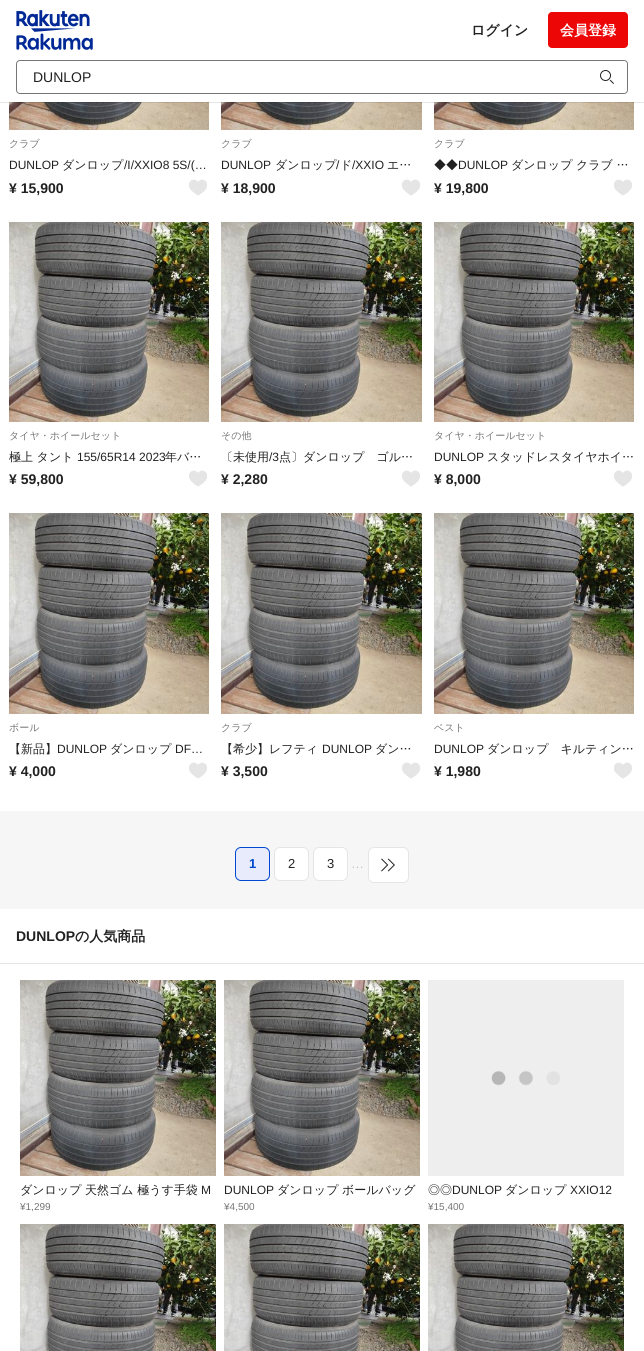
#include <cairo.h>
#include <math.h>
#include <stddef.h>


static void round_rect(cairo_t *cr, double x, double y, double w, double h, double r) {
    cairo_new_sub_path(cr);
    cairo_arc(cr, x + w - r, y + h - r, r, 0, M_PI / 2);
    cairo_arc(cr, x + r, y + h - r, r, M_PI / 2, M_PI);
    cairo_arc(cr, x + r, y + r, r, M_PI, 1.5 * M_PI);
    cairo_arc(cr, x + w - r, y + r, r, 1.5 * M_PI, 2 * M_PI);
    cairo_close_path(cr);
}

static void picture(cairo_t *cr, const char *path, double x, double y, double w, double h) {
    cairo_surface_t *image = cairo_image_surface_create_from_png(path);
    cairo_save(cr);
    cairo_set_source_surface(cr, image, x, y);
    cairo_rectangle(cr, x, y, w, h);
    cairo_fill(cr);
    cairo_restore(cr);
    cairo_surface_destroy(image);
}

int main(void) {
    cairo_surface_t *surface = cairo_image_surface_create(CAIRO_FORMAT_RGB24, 644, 1351);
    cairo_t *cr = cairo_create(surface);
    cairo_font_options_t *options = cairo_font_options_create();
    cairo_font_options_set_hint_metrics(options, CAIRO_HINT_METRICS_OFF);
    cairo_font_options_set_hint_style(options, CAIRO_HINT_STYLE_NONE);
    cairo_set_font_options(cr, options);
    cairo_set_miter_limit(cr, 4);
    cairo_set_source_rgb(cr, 0.961, 0.961, 0.961);
    cairo_paint(cr);
    cairo_set_source_rgb(cr, 1, 1, 1);
    cairo_rectangle(cr, 0, 0, 644, 811);
    cairo_fill(cr);
    picture(cr, "img3.png", 9, 102, 200, 28);
    picture(cr, "img5.png", 221, 102, 201, 28);
    picture(cr, "img3.png", 434, 102, 200, 28);
    cairo_set_source_rgba(cr, 0, 0, 0, 0.1);
    cairo_rectangle(cr, 0, 102, 644, 1);
    cairo_fill(cr);
    picture(cr, "img1.png", 16, 10, 77, 40);
    cairo_select_font_face(cr, "WenQuanYi Zen Hei", CAIRO_FONT_SLANT_NORMAL, CAIRO_FONT_WEIGHT_BOLD);
    cairo_set_font_size(cr, 14);
    cairo_set_source_rgb(cr, 0.129, 0.129, 0.129);
    cairo_move_to(cr, 471, 35);
    cairo_show_text(cr, "ログイン");
    cairo_set_source_rgb(cr, 0.925, 0.024, 0.024);
    round_rect(cr, 548, 12, 80, 36, 4);
    cairo_fill(cr);
    cairo_set_source_rgb(cr, 1, 1, 1);
    cairo_move_to(cr, 560, 35);
    cairo_show_text(cr, "会員登録");
    round_rect(cr, 16.5, 60.5, 611, 33, 3.5);
    cairo_set_source_rgb(cr, 0.459, 0.459, 0.459);
    cairo_set_line_width(cr, 1);
    cairo_stroke(cr);
    cairo_set_source_rgb(cr, 1, 1, 1);
    round_rect(cr, 17, 61, 610, 32, 4);
    cairo_fill(cr);
    cairo_select_font_face(cr, "Liberation Sans", CAIRO_FONT_SLANT_NORMAL, CAIRO_FONT_WEIGHT_NORMAL);
    cairo_set_source_rgb(cr, 0.129, 0.129, 0.129);
    cairo_move_to(cr, 33, 82);
    cairo_show_text(cr, "DUNLOP");
    picture(cr, "img2.png", 600, 70, 14, 14);
    cairo_select_font_face(cr, "WenQuanYi Zen Hei Medium", CAIRO_FONT_SLANT_NORMAL, CAIRO_FONT_WEIGHT_NORMAL);
    cairo_set_font_size(cr, 10);
    cairo_set_source_rgb(cr, 0.459, 0.459, 0.459);
    cairo_move_to(cr, 9, 147);
    cairo_show_text(cr, "クラブ");
    cairo_select_font_face(cr, "Liberation Sans", CAIRO_FONT_SLANT_NORMAL, CAIRO_FONT_WEIGHT_NORMAL);
    cairo_set_font_size(cr, 12);
    cairo_set_source_rgb(cr, 0.129, 0.129, 0.129);
    cairo_move_to(cr, 9, 169);
    cairo_show_text(cr, "DUNLOP");
    cairo_select_font_face(cr, "WenQuanYi Zen Hei Medium", CAIRO_FONT_SLANT_NORMAL, CAIRO_FONT_WEIGHT_NORMAL);
    cairo_move_to(cr, 62, 169);
    cairo_show_text(cr, "ダンロップ");
    cairo_select_font_face(cr, "Liberation Sans", CAIRO_FONT_SLANT_NORMAL, CAIRO_FONT_WEIGHT_NORMAL);
    cairo_move_to(cr, 124, 169);
    cairo_show_text(cr, "/I/XXIO8 5S/(…");
    cairo_select_font_face(cr, "Liberation Sans", CAIRO_FONT_SLANT_NORMAL, CAIRO_FONT_WEIGHT_BOLD);
    cairo_set_font_size(cr, 14);
    cairo_move_to(cr, 9, 193);
    cairo_show_text(cr, "¥ 15,900");
    picture(cr, "img4.png", 189, 179, 18, 17);
    cairo_select_font_face(cr, "WenQuanYi Zen Hei Medium", CAIRO_FONT_SLANT_NORMAL, CAIRO_FONT_WEIGHT_NORMAL);
    cairo_set_font_size(cr, 10);
    cairo_set_source_rgb(cr, 0.459, 0.459, 0.459);
    cairo_move_to(cr, 221, 147);
    cairo_show_text(cr, "クラブ");
    cairo_select_font_face(cr, "Liberation Sans", CAIRO_FONT_SLANT_NORMAL, CAIRO_FONT_WEIGHT_NORMAL);
    cairo_set_font_size(cr, 12);
    cairo_set_source_rgb(cr, 0.129, 0.129, 0.129);
    cairo_move_to(cr, 221, 169);
    cairo_show_text(cr, "DUNLOP");
    cairo_select_font_face(cr, "WenQuanYi Zen Hei Medium", CAIRO_FONT_SLANT_NORMAL, CAIRO_FONT_WEIGHT_NORMAL);
    cairo_move_to(cr, 275, 169);
    cairo_show_text(cr, "ダンロップ ド");
    cairo_select_font_face(cr, "Liberation Sans", CAIRO_FONT_SLANT_NORMAL, CAIRO_FONT_WEIGHT_NORMAL);
    cairo_move_to(cr, 336, 169);
    cairo_show_text(cr, "/");
    cairo_move_to(cr, 352, 169);
    cairo_show_text(cr, "/XXIO");
    cairo_select_font_face(cr, "WenQuanYi Zen Hei Medium", CAIRO_FONT_SLANT_NORMAL, CAIRO_FONT_WEIGHT_NORMAL);
    cairo_move_to(cr, 387, 169);
    cairo_show_text(cr, "エ…");
    cairo_select_font_face(cr, "Liberation Sans", CAIRO_FONT_SLANT_NORMAL, CAIRO_FONT_WEIGHT_BOLD);
    cairo_set_font_size(cr, 14);
    cairo_move_to(cr, 221, 193);
    cairo_show_text(cr, "¥ 18,900");
    picture(cr, "img4.png", 402, 179, 18, 17);
    cairo_select_font_face(cr, "WenQuanYi Zen Hei Medium", CAIRO_FONT_SLANT_NORMAL, CAIRO_FONT_WEIGHT_NORMAL);
    cairo_set_font_size(cr, 10);
    cairo_set_source_rgb(cr, 0.459, 0.459, 0.459);
    cairo_move_to(cr, 434, 147);
    cairo_show_text(cr, "クラブ");
    cairo_set_font_size(cr, 12);
    cairo_set_source_rgb(cr, 0.129, 0.129, 0.129);
    cairo_move_to(cr, 434, 169);
    cairo_show_text(cr, "◆◆");
    cairo_select_font_face(cr, "Liberation Sans", CAIRO_FONT_SLANT_NORMAL, CAIRO_FONT_WEIGHT_NORMAL);
    cairo_move_to(cr, 458, 169);
    cairo_show_text(cr, "DUNLOP");
    cairo_select_font_face(cr, "WenQuanYi Zen Hei Medium", CAIRO_FONT_SLANT_NORMAL, CAIRO_FONT_WEIGHT_NORMAL);
    cairo_move_to(cr, 511, 169);
    cairo_show_text(cr, "ダンロップ クラブ …");
    cairo_select_font_face(cr, "Liberation Sans", CAIRO_FONT_SLANT_NORMAL, CAIRO_FONT_WEIGHT_BOLD);
    cairo_set_font_size(cr, 14);
    cairo_move_to(cr, 434, 193);
    cairo_show_text(cr, "¥ 19,800");
    picture(cr, "img4.png", 614, 179, 18, 17);
    picture(cr, "img6.png", 9, 222, 200, 200);
    cairo_select_font_face(cr, "WenQuanYi Zen Hei Medium", CAIRO_FONT_SLANT_NORMAL, CAIRO_FONT_WEIGHT_NORMAL);
    cairo_set_font_size(cr, 10);
    cairo_set_source_rgb(cr, 0.459, 0.459, 0.459);
    cairo_move_to(cr, 9, 439);
    cairo_show_text(cr, "タイヤ・ホイールセット");
    cairo_set_font_size(cr, 12);
    cairo_set_source_rgb(cr, 0.129, 0.129, 0.129);
    cairo_move_to(cr, 9, 461);
    cairo_show_text(cr, "極上 タント");
    cairo_select_font_face(cr, "Liberation Sans", CAIRO_FONT_SLANT_NORMAL, CAIRO_FONT_WEIGHT_NORMAL);
    cairo_move_to(cr, 77, 461);
    cairo_show_text(cr, "155/65R14 2023");
    cairo_select_font_face(cr, "WenQuanYi Zen Hei Medium", CAIRO_FONT_SLANT_NORMAL, CAIRO_FONT_WEIGHT_NORMAL);
    cairo_move_to(cr, 165, 461);
    cairo_show_text(cr, "年バ…");
    cairo_select_font_face(cr, "Liberation Sans", CAIRO_FONT_SLANT_NORMAL, CAIRO_FONT_WEIGHT_BOLD);
    cairo_set_font_size(cr, 14);
    cairo_move_to(cr, 9, 484);
    cairo_show_text(cr, "¥ 59,800");
    picture(cr, "img4.png", 189, 470, 18, 17);
    picture(cr, "img7.png", 221, 222, 201, 200);
    cairo_select_font_face(cr, "WenQuanYi Zen Hei Medium", CAIRO_FONT_SLANT_NORMAL, CAIRO_FONT_WEIGHT_NORMAL);
    cairo_set_font_size(cr, 10);
    cairo_set_source_rgb(cr, 0.459, 0.459, 0.459);
    cairo_move_to(cr, 221, 439);
    cairo_show_text(cr, "その他");
    cairo_set_font_size(cr, 12);
    cairo_set_source_rgb(cr, 0.129, 0.129, 0.129);
    cairo_move_to(cr, 221, 461);
    cairo_show_text(cr, "〔未使用");
    cairo_select_font_face(cr, "Liberation Sans", CAIRO_FONT_SLANT_NORMAL, CAIRO_FONT_WEIGHT_NORMAL);
    cairo_move_to(cr, 269, 461);
    cairo_show_text(cr, "/3");
    cairo_select_font_face(cr, "WenQuanYi Zen Hei Medium", CAIRO_FONT_SLANT_NORMAL, CAIRO_FONT_WEIGHT_NORMAL);
    cairo_move_to(cr, 279, 461);
    cairo_show_text(cr, "点〕ダンロップ　ゴル…");
    cairo_select_font_face(cr, "Liberation Sans", CAIRO_FONT_SLANT_NORMAL, CAIRO_FONT_WEIGHT_BOLD);
    cairo_set_font_size(cr, 14);
    cairo_move_to(cr, 221, 484);
    cairo_show_text(cr, "¥ 2,280");
    picture(cr, "img4.png", 402, 470, 18, 17);
    picture(cr, "img6.png", 434, 222, 200, 200);
    cairo_select_font_face(cr, "WenQuanYi Zen Hei Medium", CAIRO_FONT_SLANT_NORMAL, CAIRO_FONT_WEIGHT_NORMAL);
    cairo_set_font_size(cr, 10);
    cairo_set_source_rgb(cr, 0.459, 0.459, 0.459);
    cairo_move_to(cr, 434, 439);
    cairo_show_text(cr, "タイヤ・ホイールセット");
    cairo_select_font_face(cr, "Liberation Sans", CAIRO_FONT_SLANT_NORMAL, CAIRO_FONT_WEIGHT_NORMAL);
    cairo_set_font_size(cr, 12);
    cairo_set_source_rgb(cr, 0.129, 0.129, 0.129);
    cairo_move_to(cr, 434, 461);
    cairo_show_text(cr, "DUNLOP");
    cairo_select_font_face(cr, "WenQuanYi Zen Hei Medium", CAIRO_FONT_SLANT_NORMAL, CAIRO_FONT_WEIGHT_NORMAL);
    cairo_move_to(cr, 487, 461);
    cairo_show_text(cr, "スタッドレスタイヤホイ…");
    cairo_select_font_face(cr, "Liberation Sans", CAIRO_FONT_SLANT_NORMAL, CAIRO_FONT_WEIGHT_BOLD);
    cairo_set_font_size(cr, 14);
    cairo_move_to(cr, 434, 484);
    cairo_show_text(cr, "¥ 8,000");
    picture(cr, "img4.png", 614, 470, 18, 17);
    picture(cr, "img8.png", 9, 513, 200, 201);
    cairo_select_font_face(cr, "WenQuanYi Zen Hei Medium", CAIRO_FONT_SLANT_NORMAL, CAIRO_FONT_WEIGHT_NORMAL);
    cairo_set_font_size(cr, 10);
    cairo_set_source_rgb(cr, 0.459, 0.459, 0.459);
    cairo_move_to(cr, 9, 731);
    cairo_show_text(cr, "ボール");
    cairo_set_font_size(cr, 12);
    cairo_set_source_rgb(cr, 0.129, 0.129, 0.129);
    cairo_move_to(cr, 9, 753);
    cairo_show_text(cr, "【新品】");
    cairo_select_font_face(cr, "Liberation Sans", CAIRO_FONT_SLANT_NORMAL, CAIRO_FONT_WEIGHT_NORMAL);
    cairo_move_to(cr, 57, 753);
    cairo_show_text(cr, "DUNLOP");
    cairo_select_font_face(cr, "WenQuanYi Zen Hei Medium", CAIRO_FONT_SLANT_NORMAL, CAIRO_FONT_WEIGHT_NORMAL);
    cairo_move_to(cr, 110, 753);
    cairo_show_text(cr, "ダンロップ");
    cairo_select_font_face(cr, "Liberation Sans", CAIRO_FONT_SLANT_NORMAL, CAIRO_FONT_WEIGHT_NORMAL);
    cairo_move_to(cr, 175, 753);
    cairo_show_text(cr, "DF…");
    cairo_select_font_face(cr, "Liberation Sans", CAIRO_FONT_SLANT_NORMAL, CAIRO_FONT_WEIGHT_BOLD);
    cairo_set_font_size(cr, 14);
    cairo_move_to(cr, 9, 776);
    cairo_show_text(cr, "¥ 4,000");
    picture(cr, "img4.png", 189, 762, 18, 17);
    picture(cr, "img9.png", 221, 513, 201, 201);
    cairo_select_font_face(cr, "WenQuanYi Zen Hei Medium", CAIRO_FONT_SLANT_NORMAL, CAIRO_FONT_WEIGHT_NORMAL);
    cairo_set_font_size(cr, 10);
    cairo_set_source_rgb(cr, 0.459, 0.459, 0.459);
    cairo_move_to(cr, 221, 731);
    cairo_show_text(cr, "クラブ");
    cairo_set_font_size(cr, 12);
    cairo_set_source_rgb(cr, 0.129, 0.129, 0.129);
    cairo_move_to(cr, 221, 753);
    cairo_show_text(cr, "【希少】レフティ");
    cairo_select_font_face(cr, "Liberation Sans", CAIRO_FONT_SLANT_NORMAL, CAIRO_FONT_WEIGHT_NORMAL);
    cairo_move_to(cr, 322, 753);
    cairo_show_text(cr, "DUNLOP");
    cairo_select_font_face(cr, "WenQuanYi Zen Hei Medium", CAIRO_FONT_SLANT_NORMAL, CAIRO_FONT_WEIGHT_NORMAL);
    cairo_move_to(cr, 375, 753);
    cairo_show_text(cr, "ダン…");
    cairo_select_font_face(cr, "Liberation Sans", CAIRO_FONT_SLANT_NORMAL, CAIRO_FONT_WEIGHT_BOLD);
    cairo_set_font_size(cr, 14);
    cairo_move_to(cr, 221, 776);
    cairo_show_text(cr, "¥ 3,500");
    picture(cr, "img4.png", 402, 762, 18, 17);
    picture(cr, "img8.png", 434, 513, 200, 201);
    cairo_select_font_face(cr, "WenQuanYi Zen Hei Medium", CAIRO_FONT_SLANT_NORMAL, CAIRO_FONT_WEIGHT_NORMAL);
    cairo_set_font_size(cr, 10);
    cairo_set_source_rgb(cr, 0.459, 0.459, 0.459);
    cairo_move_to(cr, 434, 731);
    cairo_show_text(cr, "ベスト");
    cairo_select_font_face(cr, "Liberation Sans", CAIRO_FONT_SLANT_NORMAL, CAIRO_FONT_WEIGHT_NORMAL);
    cairo_set_font_size(cr, 12);
    cairo_set_source_rgb(cr, 0.129, 0.129, 0.129);
    cairo_move_to(cr, 434, 753);
    cairo_show_text(cr, "DUNLOP");
    cairo_select_font_face(cr, "WenQuanYi Zen Hei Medium", CAIRO_FONT_SLANT_NORMAL, CAIRO_FONT_WEIGHT_NORMAL);
    cairo_move_to(cr, 487, 753);
    cairo_show_text(cr, "ダンロップ　キルティン…");
    cairo_select_font_face(cr, "Liberation Sans", CAIRO_FONT_SLANT_NORMAL, CAIRO_FONT_WEIGHT_BOLD);
    cairo_set_font_size(cr, 14);
    cairo_move_to(cr, 434, 776);
    cairo_show_text(cr, "¥ 1,980");
    picture(cr, "img4.png", 614, 762, 18, 17);
    cairo_set_source_rgb(cr, 0.91, 0.918, 0.984);
    round_rect(cr, 235.5, 847.5, 34, 33, 5.5);
    cairo_fill_preserve(cr);
    cairo_set_source_rgb(cr, 0, 0.278, 0.82);
    cairo_stroke(cr);
    cairo_set_font_size(cr, 13);
    cairo_move_to(cr, 249, 868);
    cairo_show_text(cr, "1");
    cairo_set_source_rgb(cr, 1, 1, 1);
    round_rect(cr, 274.5, 847.5, 34, 33, 5.5);
    cairo_fill_preserve(cr);
    cairo_set_source_rgb(cr, 0.898, 0.898, 0.898);
    cairo_stroke(cr);
    cairo_select_font_face(cr, "Liberation Sans", CAIRO_FONT_SLANT_NORMAL, CAIRO_FONT_WEIGHT_NORMAL);
    cairo_set_source_rgb(cr, 0.129, 0.129, 0.129);
    cairo_move_to(cr, 288, 868);
    cairo_show_text(cr, "2");
    cairo_set_source_rgb(cr, 1, 1, 1);
    round_rect(cr, 313.5, 847.5, 34, 33, 5.5);
    cairo_fill_preserve(cr);
    cairo_set_source_rgb(cr, 0.898, 0.898, 0.898);
    cairo_stroke(cr);
    cairo_set_source_rgb(cr, 0.129, 0.129, 0.129);
    cairo_move_to(cr, 327, 868);
    cairo_show_text(cr, "3");
    cairo_set_source_rgb(cr, 0.773, 0.773, 0.773);
    cairo_move_to(cr, 351, 868);
    cairo_show_text(cr, "…");
    cairo_set_source_rgb(cr, 1, 1, 1);
    round_rect(cr, 368.5, 847.5, 40, 35, 5.5);
    cairo_fill_preserve(cr);
    cairo_set_source_rgb(cr, 0.898, 0.898, 0.898);
    cairo_stroke(cr);
    picture(cr, "img10.png", 381, 858, 14, 14);
    cairo_set_source_rgb(cr, 1, 1, 1);
    cairo_rectangle(cr, 0, 909, 644, 442);
    cairo_fill(cr);
    cairo_set_source_rgb(cr, 0.898, 0.898, 0.898);
    cairo_rectangle(cr, 0, 963, 644, 1);
    cairo_fill(cr);
    cairo_select_font_face(cr, "Liberation Sans", CAIRO_FONT_SLANT_NORMAL, CAIRO_FONT_WEIGHT_BOLD);
    cairo_set_font_size(cr, 14);
    cairo_set_source_rgb(cr, 0.129, 0.129, 0.129);
    cairo_move_to(cr, 16, 941);
    cairo_show_text(cr, "DUNLOP");
    cairo_select_font_face(cr, "WenQuanYi Zen Hei", CAIRO_FONT_SLANT_NORMAL, CAIRO_FONT_WEIGHT_BOLD);
    cairo_move_to(cr, 75, 941);
    cairo_show_text(cr, "の人気商品");
    picture(cr, "img11.png", 20, 980, 196, 196);
    cairo_select_font_face(cr, "WenQuanYi Zen Hei Medium", CAIRO_FONT_SLANT_NORMAL, CAIRO_FONT_WEIGHT_NORMAL);
    cairo_set_font_size(cr, 12);
    cairo_move_to(cr, 20, 1194);
    cairo_show_text(cr, "ダンロップ 天然ゴム 極うす手袋");
    cairo_select_font_face(cr, "Liberation Sans", CAIRO_FONT_SLANT_NORMAL, CAIRO_FONT_WEIGHT_NORMAL);
    cairo_move_to(cr, 201, 1194);
    cairo_show_text(cr, "M");
    cairo_set_font_size(cr, 10);
    cairo_set_source_rgb(cr, 0.459, 0.459, 0.459);
    cairo_move_to(cr, 20, 1210);
    cairo_show_text(cr, "¥1,299");
    picture(cr, "img12.png", 224, 980, 196, 196);
    cairo_set_font_size(cr, 12);
    cairo_set_source_rgb(cr, 0.129, 0.129, 0.129);
    cairo_move_to(cr, 224, 1194);
    cairo_show_text(cr, "DUNLOP");
    cairo_select_font_face(cr, "WenQuanYi Zen Hei Medium", CAIRO_FONT_SLANT_NORMAL, CAIRO_FONT_WEIGHT_NORMAL);
    cairo_move_to(cr, 277, 1194);
    cairo_show_text(cr, "ダンロップ ボールバッグ");
    cairo_select_font_face(cr, "Liberation Sans", CAIRO_FONT_SLANT_NORMAL, CAIRO_FONT_WEIGHT_NORMAL);
    cairo_set_font_size(cr, 10);
    cairo_set_source_rgb(cr, 0.459, 0.459, 0.459);
    cairo_move_to(cr, 224, 1210);
    cairo_show_text(cr, "¥4,500");
    picture(cr, "img13.png", 428, 980, 196, 196);
    cairo_select_font_face(cr, "WenQuanYi Zen Hei Medium", CAIRO_FONT_SLANT_NORMAL, CAIRO_FONT_WEIGHT_NORMAL);
    cairo_set_font_size(cr, 12);
    cairo_set_source_rgb(cr, 0.129, 0.129, 0.129);
    cairo_move_to(cr, 428, 1194);
    cairo_show_text(cr, "◎◎");
    cairo_select_font_face(cr, "Liberation Sans", CAIRO_FONT_SLANT_NORMAL, CAIRO_FONT_WEIGHT_NORMAL);
    cairo_move_to(cr, 452, 1194);
    cairo_show_text(cr, "DUNLOP");
    cairo_select_font_face(cr, "WenQuanYi Zen Hei Medium", CAIRO_FONT_SLANT_NORMAL, CAIRO_FONT_WEIGHT_NORMAL);
    cairo_move_to(cr, 505, 1194);
    cairo_show_text(cr, "ダンロップ");
    cairo_select_font_face(cr, "Liberation Sans", CAIRO_FONT_SLANT_NORMAL, CAIRO_FONT_WEIGHT_NORMAL);
    cairo_move_to(cr, 570, 1194);
    cairo_show_text(cr, "XXIO12");
    cairo_set_font_size(cr, 10);
    cairo_set_source_rgb(cr, 0.459, 0.459, 0.459);
    cairo_move_to(cr, 428, 1210);
    cairo_show_text(cr, "¥15,400");
    picture(cr, "img14.png", 20, 1224, 196, 127);
    picture(cr, "img15.png", 224, 1224, 196, 127);
    picture(cr, "img14.png", 428, 1224, 196, 127);
    cairo_surface_write_to_png(surface, "page.png");
    cairo_font_options_destroy(options);
    cairo_destroy(cr);
    cairo_surface_destroy(surface);
    return 0;
}
